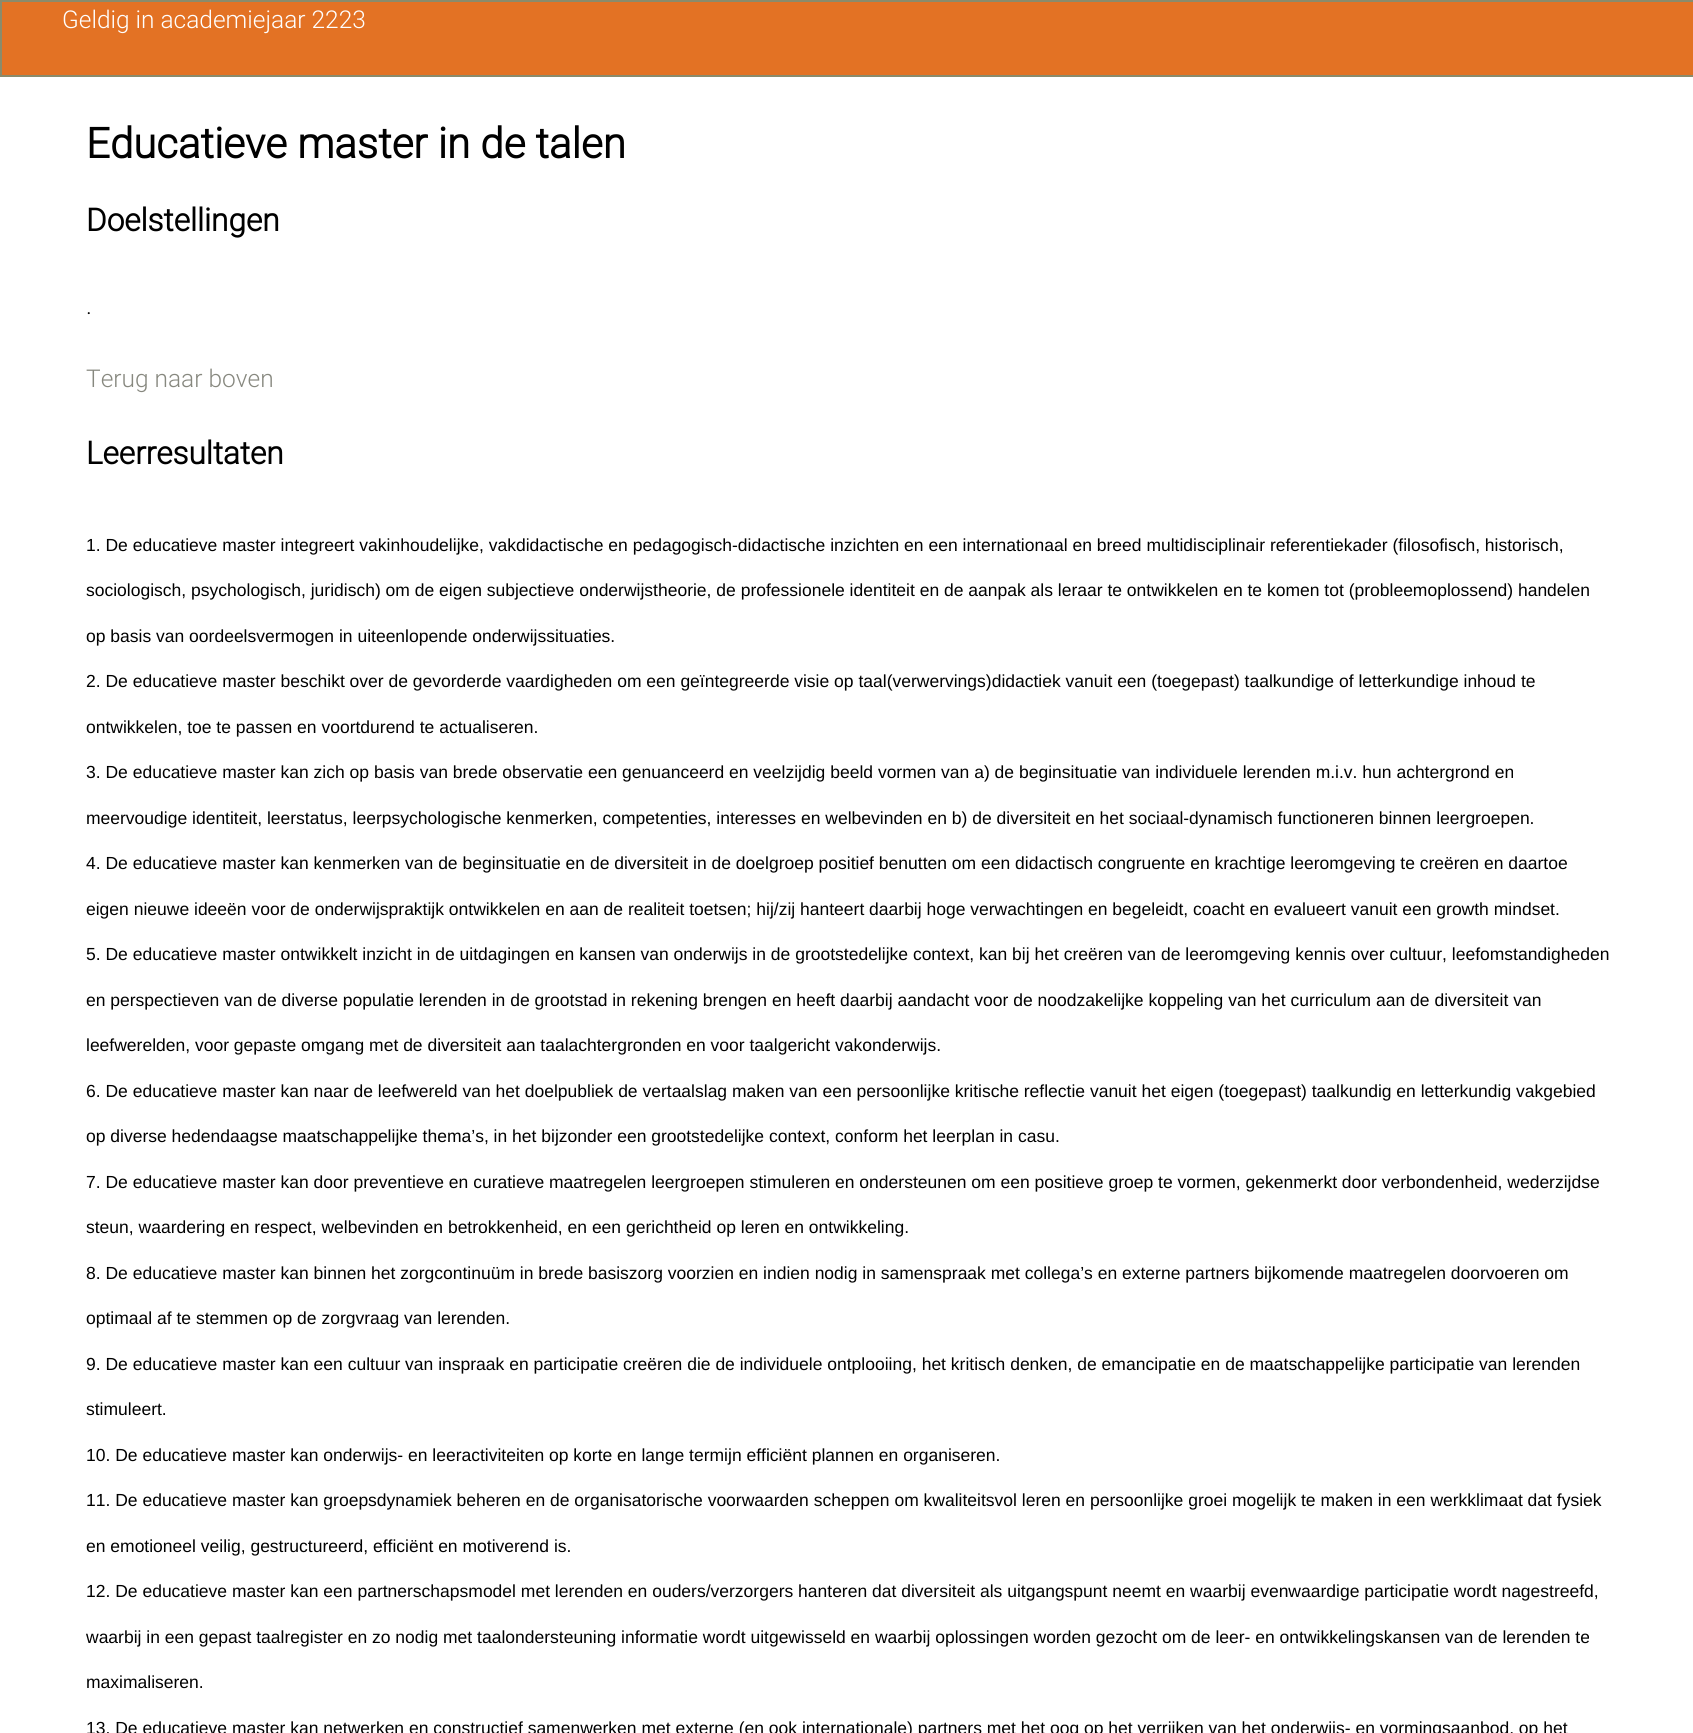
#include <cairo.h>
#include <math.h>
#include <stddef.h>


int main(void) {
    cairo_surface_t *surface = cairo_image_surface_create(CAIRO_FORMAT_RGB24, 1693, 1733);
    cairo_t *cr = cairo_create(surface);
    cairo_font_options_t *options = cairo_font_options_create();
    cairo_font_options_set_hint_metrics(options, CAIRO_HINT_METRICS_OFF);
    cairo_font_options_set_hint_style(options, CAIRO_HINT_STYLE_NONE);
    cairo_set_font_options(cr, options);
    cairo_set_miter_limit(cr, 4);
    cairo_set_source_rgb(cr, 1, 1, 1);
    cairo_paint(cr);
    cairo_set_source_rgb(cr, 0.89, 0.447, 0.141);
    cairo_rectangle(cr, 2, 2, 1691, 73);
    cairo_fill(cr);
    cairo_set_source_rgb(cr, 0.541, 0.545, 0.42);
    cairo_rectangle(cr, 0, 0, 1693, 2);
    cairo_fill(cr);
    cairo_rectangle(cr, 0, 75, 1693, 2);
    cairo_fill(cr);
    cairo_rectangle(cr, 0, 0, 2, 77);
    cairo_fill(cr);
    cairo_select_font_face(cr, "Roboto Light", CAIRO_FONT_SLANT_NORMAL, CAIRO_FONT_WEIGHT_NORMAL);
    cairo_set_font_size(cr, 24.5);
    cairo_set_source_rgb(cr, 1, 1, 1);
    cairo_move_to(cr, 62, 28);
    cairo_show_text(cr, "Geldig in academiejaar 2223");
    cairo_select_font_face(cr, "Roboto", CAIRO_FONT_SLANT_NORMAL, CAIRO_FONT_WEIGHT_BOLD);
    cairo_set_font_size(cr, 42);
    cairo_set_source_rgb(cr, 0, 0, 0);
    cairo_move_to(cr, 86, 158);
    cairo_show_text(cr, "Educatieve master in de talen");
    cairo_set_font_size(cr, 31.5);
    cairo_move_to(cr, 86, 231);
    cairo_show_text(cr, "Doelstellingen");
    cairo_select_font_face(cr, "Roboto Light", CAIRO_FONT_SLANT_NORMAL, CAIRO_FONT_WEIGHT_NORMAL);
    cairo_set_font_size(cr, 24.5);
    cairo_move_to(cr, 86, 314);
    cairo_show_text(cr, ".");
    cairo_set_source_rgb(cr, 0.529, 0.533, 0.498);
    cairo_move_to(cr, 86, 387);
    cairo_show_text(cr, "Terug naar boven");
    cairo_select_font_face(cr, "Roboto", CAIRO_FONT_SLANT_NORMAL, CAIRO_FONT_WEIGHT_BOLD);
    cairo_set_font_size(cr, 31.5);
    cairo_set_source_rgb(cr, 0, 0, 0);
    cairo_move_to(cr, 86, 464);
    cairo_show_text(cr, "Leerresultaten");
    cairo_select_font_face(cr, "Liberation Sans", CAIRO_FONT_SLANT_NORMAL, CAIRO_FONT_WEIGHT_NORMAL);
    cairo_set_font_size(cr, 17.5);
    cairo_move_to(cr, 86, 551);
    cairo_show_text(cr, "1. De educatieve master integreert vakinhoudelijke, vakdidactische en pedagogisch-didactische inzichten en een internationaal en breed multidisciplinair referentiekader (filosofisch, historisch,");
    cairo_move_to(cr, 86, 596);
    cairo_show_text(cr, "sociologisch, psychologisch, juridisch) om de eigen subjectieve onderwijstheorie, de professionele identiteit en de aanpak als leraar te ontwikkelen en te komen tot (probleemoplossend) handelen");
    cairo_move_to(cr, 86, 642);
    cairo_show_text(cr, "op basis van oordeelsvermogen in uiteenlopende onderwijssituaties.");
    cairo_move_to(cr, 86, 687);
    cairo_show_text(cr, "2. De educatieve master beschikt over de gevorderde vaardigheden om een geïntegreerde visie op taal(verwervings)didactiek vanuit een (toegepast) taalkundige of letterkundige inhoud te");
    cairo_move_to(cr, 86, 733);
    cairo_show_text(cr, "ontwikkelen, toe te passen en voortdurend te actualiseren.");
    cairo_move_to(cr, 86, 778);
    cairo_show_text(cr, "3. De educatieve master kan zich op basis van brede observatie een genuanceerd en veelzijdig beeld vormen van a) de beginsituatie van individuele lerenden m.i.v. hun achtergrond en");
    cairo_move_to(cr, 86, 824);
    cairo_show_text(cr, "meervoudige identiteit, leerstatus, leerpsychologische kenmerken, competenties, interesses en welbevinden en b) de diversiteit en het sociaal-dynamisch functioneren binnen leergroepen.");
    cairo_move_to(cr, 86, 869);
    cairo_show_text(cr, "4. De educatieve master kan kenmerken van de beginsituatie en de diversiteit in de doelgroep positief benutten om een didactisch congruente en krachtige leeromgeving te creëren en daartoe");
    cairo_move_to(cr, 86, 915);
    cairo_show_text(cr, "eigen nieuwe ideeën voor de onderwijspraktijk ontwikkelen en aan de realiteit toetsen; hij/zij hanteert daarbij hoge verwachtingen en begeleidt, coacht en evalueert vanuit een growth mindset.");
    cairo_move_to(cr, 86, 960);
    cairo_show_text(cr, "5. De educatieve master ontwikkelt inzicht in de uitdagingen en kansen van onderwijs in de grootstedelijke context, kan bij het creëren van de leeromgeving kennis over cultuur, leefomstandigheden");
    cairo_move_to(cr, 86, 1006);
    cairo_show_text(cr, "en perspectieven van de diverse populatie lerenden in de grootstad in rekening brengen en heeft daarbij aandacht voor de noodzakelijke koppeling van het curriculum aan de diversiteit van");
    cairo_move_to(cr, 86, 1051);
    cairo_show_text(cr, "leefwerelden, voor gepaste omgang met de diversiteit aan taalachtergronden en voor taalgericht vakonderwijs.");
    cairo_move_to(cr, 86, 1097);
    cairo_show_text(cr, "6. De educatieve master kan naar de leefwereld van het doelpubliek de vertaalslag maken van een persoonlijke kritische reflectie vanuit het eigen (toegepast) taalkundig en letterkundig vakgebied");
    cairo_move_to(cr, 86, 1142);
    cairo_show_text(cr, "op diverse hedendaagse maatschappelijke thema’s, in het bijzonder een grootstedelijke context, conform het leerplan in casu.");
    cairo_move_to(cr, 86, 1188);
    cairo_show_text(cr, "7. De educatieve master kan door preventieve en curatieve maatregelen leergroepen stimuleren en ondersteunen om een positieve groep te vormen, gekenmerkt door verbondenheid, wederzijdse");
    cairo_move_to(cr, 86, 1233);
    cairo_show_text(cr, "steun, waardering en respect, welbevinden en betrokkenheid, en een gerichtheid op leren en ontwikkeling.");
    cairo_move_to(cr, 86, 1279);
    cairo_show_text(cr, "8. De educatieve master kan binnen het zorgcontinuüm in brede basiszorg voorzien en indien nodig in samenspraak met collega’s en externe partners bijkomende maatregelen doorvoeren om");
    cairo_move_to(cr, 86, 1324);
    cairo_show_text(cr, "optimaal af te stemmen op de zorgvraag van lerenden.");
    cairo_move_to(cr, 86, 1370);
    cairo_show_text(cr, "9. De educatieve master kan een cultuur van inspraak en participatie creëren die de individuele ontplooiing, het kritisch denken, de emancipatie en de maatschappelijke participatie van lerenden");
    cairo_move_to(cr, 86, 1415);
    cairo_show_text(cr, "stimuleert.");
    cairo_move_to(cr, 86, 1461);
    cairo_show_text(cr, "10. De educatieve master kan onderwijs- en leeractiviteiten op korte en lange termijn efficiënt plannen en organiseren.");
    cairo_move_to(cr, 86, 1506);
    cairo_show_text(cr, "11. De educatieve master kan groepsdynamiek beheren en de organisatorische voorwaarden scheppen om kwaliteitsvol leren en persoonlijke groei mogelijk te maken in een werkklimaat dat fysiek");
    cairo_move_to(cr, 86, 1552);
    cairo_show_text(cr, "en emotioneel veilig, gestructureerd, efficiënt en motiverend is.");
    cairo_move_to(cr, 86, 1597);
    cairo_show_text(cr, "12. De educatieve master kan een partnerschapsmodel met lerenden en ouders/verzorgers hanteren dat diversiteit als uitgangspunt neemt en waarbij evenwaardige participatie wordt nagestreefd,");
    cairo_move_to(cr, 86, 1643);
    cairo_show_text(cr, "waarbij in een gepast taalregister en zo nodig met taalondersteuning informatie wordt uitgewisseld en waarbij oplossingen worden gezocht om de leer- en ontwikkelingskansen van de lerenden te");
    cairo_move_to(cr, 86, 1688);
    cairo_show_text(cr, "maximaliseren.");
    cairo_move_to(cr, 86, 1734);
    cairo_show_text(cr, "13. De educatieve master kan netwerken en constructief samenwerken met externe (en ook internationale) partners met het oog op het verrijken van het onderwijs- en vormingsaanbod, op het");
    cairo_surface_write_to_png(surface, "page.png");
    cairo_font_options_destroy(options);
    cairo_destroy(cr);
    cairo_surface_destroy(surface);
    return 0;
}
